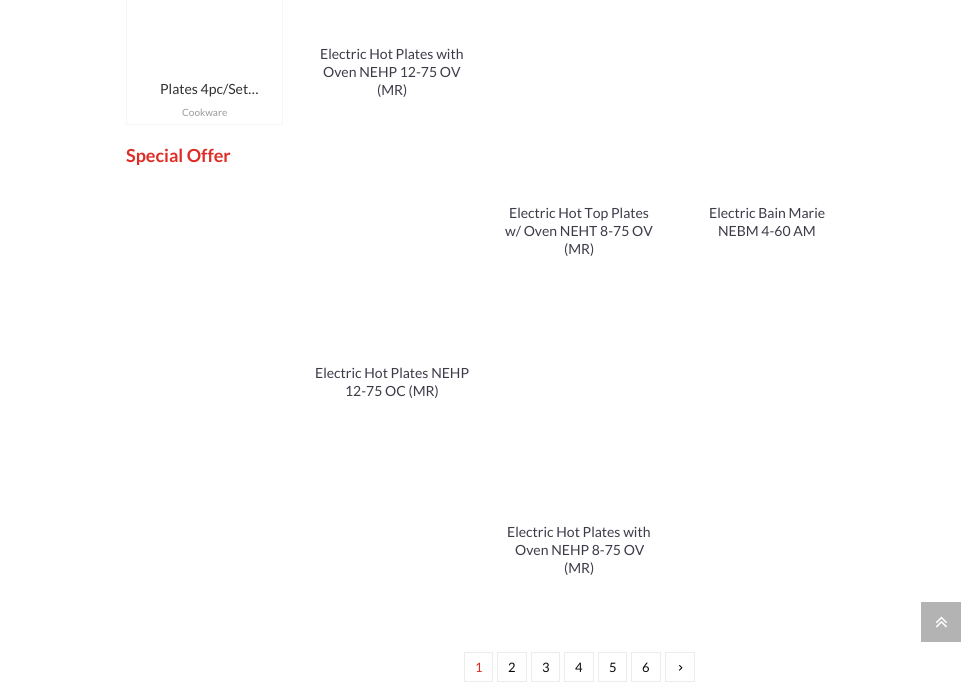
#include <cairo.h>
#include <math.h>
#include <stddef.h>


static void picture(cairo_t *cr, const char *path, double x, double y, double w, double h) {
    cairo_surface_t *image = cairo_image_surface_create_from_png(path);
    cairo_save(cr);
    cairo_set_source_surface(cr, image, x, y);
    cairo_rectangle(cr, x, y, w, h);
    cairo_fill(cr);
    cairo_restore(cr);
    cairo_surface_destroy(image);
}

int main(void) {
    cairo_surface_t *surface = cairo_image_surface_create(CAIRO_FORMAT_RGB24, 971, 692);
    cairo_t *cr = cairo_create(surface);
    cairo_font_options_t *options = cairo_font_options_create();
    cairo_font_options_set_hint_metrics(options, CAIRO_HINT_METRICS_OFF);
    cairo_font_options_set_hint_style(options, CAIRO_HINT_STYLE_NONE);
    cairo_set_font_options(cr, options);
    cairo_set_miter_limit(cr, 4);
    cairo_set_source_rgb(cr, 1, 1, 1);
    cairo_paint(cr);
    cairo_rectangle(cr, 126.5, -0.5, 156, 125);
    cairo_set_source_rgb(cr, 0.961, 0.961, 0.961);
    cairo_set_line_width(cr, 1);
    cairo_stroke(cr);
    cairo_select_font_face(cr, "Lato", CAIRO_FONT_SLANT_NORMAL, CAIRO_FONT_WEIGHT_NORMAL);
    cairo_set_font_size(cr, 14);
    cairo_set_source_rgb(cr, 0.188, 0.188, 0.188);
    cairo_move_to(cr, 160, 94);
    cairo_show_text(cr, "Plates 4pc/Set…");
    cairo_set_font_size(cr, 10);
    cairo_set_source_rgb(cr, 0.6, 0.6, 0.6);
    cairo_move_to(cr, 182, 116);
    cairo_show_text(cr, "Cookware");
    cairo_select_font_face(cr, "Lato", CAIRO_FONT_SLANT_NORMAL, CAIRO_FONT_WEIGHT_BOLD);
    cairo_set_font_size(cr, 18);
    cairo_set_source_rgb(cr, 0.867, 0.176, 0.149);
    cairo_move_to(cr, 126, 162);
    cairo_show_text(cr, "Special Offer");
    cairo_select_font_face(cr, "Lato", CAIRO_FONT_SLANT_NORMAL, CAIRO_FONT_WEIGHT_NORMAL);
    cairo_set_font_size(cr, 14);
    cairo_set_source_rgb(cr, 0.235, 0.231, 0.282);
    cairo_move_to(cr, 320, 59);
    cairo_show_text(cr, "Electric Hot Plates with");
    cairo_move_to(cr, 323, 77);
    cairo_show_text(cr, "Oven NEHP 12-75 OV");
    cairo_move_to(cr, 377, 95);
    cairo_show_text(cr, "(MR)");
    cairo_move_to(cr, 509, 218);
    cairo_show_text(cr, "Electric Hot Top Plates");
    cairo_move_to(cr, 505, 236);
    cairo_show_text(cr, "w/ Oven NEHT 8-75 OV");
    cairo_move_to(cr, 564, 254);
    cairo_show_text(cr, "(MR)");
    cairo_move_to(cr, 709, 218);
    cairo_show_text(cr, "Electric Bain Marie");
    cairo_move_to(cr, 718, 236);
    cairo_show_text(cr, "NEBM 4-60 AM");
    cairo_move_to(cr, 315, 378);
    cairo_show_text(cr, "Electric Hot Plates NEHP");
    cairo_move_to(cr, 345, 396);
    cairo_show_text(cr, "12-75 OC (MR)");
    cairo_move_to(cr, 507, 537);
    cairo_show_text(cr, "Electric Hot Plates with");
    cairo_move_to(cr, 515, 555);
    cairo_show_text(cr, "Oven NEHP 8-75 OV");
    cairo_move_to(cr, 564, 573);
    cairo_show_text(cr, "(MR)");
    cairo_rectangle(cr, 464.5, 652.5, 28, 29);
    cairo_set_source_rgb(cr, 0.922, 0.922, 0.922);
    cairo_stroke(cr);
    cairo_set_font_size(cr, 13);
    cairo_set_source_rgb(cr, 0.867, 0.176, 0.149);
    cairo_move_to(cr, 475, 672);
    cairo_show_text(cr, "1");
    cairo_rectangle(cr, 497.5, 652.5, 29, 29);
    cairo_set_source_rgb(cr, 0.922, 0.922, 0.922);
    cairo_stroke(cr);
    cairo_set_source_rgb(cr, 0.039, 0.039, 0.039);
    cairo_move_to(cr, 508, 672);
    cairo_show_text(cr, "2");
    cairo_rectangle(cr, 531.5, 652.5, 28, 29);
    cairo_set_source_rgb(cr, 0.922, 0.922, 0.922);
    cairo_stroke(cr);
    cairo_set_source_rgb(cr, 0.039, 0.039, 0.039);
    cairo_move_to(cr, 542, 672);
    cairo_show_text(cr, "3");
    cairo_rectangle(cr, 564.5, 652.5, 29, 29);
    cairo_set_source_rgb(cr, 0.922, 0.922, 0.922);
    cairo_stroke(cr);
    cairo_set_source_rgb(cr, 0.039, 0.039, 0.039);
    cairo_move_to(cr, 575, 672);
    cairo_show_text(cr, "4");
    cairo_rectangle(cr, 598.5, 652.5, 28, 29);
    cairo_set_source_rgb(cr, 0.922, 0.922, 0.922);
    cairo_stroke(cr);
    cairo_set_source_rgb(cr, 0.039, 0.039, 0.039);
    cairo_move_to(cr, 609, 672);
    cairo_show_text(cr, "5");
    cairo_rectangle(cr, 631.5, 652.5, 29, 29);
    cairo_set_source_rgb(cr, 0.922, 0.922, 0.922);
    cairo_stroke(cr);
    cairo_set_source_rgb(cr, 0.039, 0.039, 0.039);
    cairo_move_to(cr, 642, 672);
    cairo_show_text(cr, "6");
    cairo_rectangle(cr, 665.5, 652.5, 29, 29);
    cairo_set_source_rgb(cr, 0.922, 0.922, 0.922);
    cairo_stroke(cr);
    picture(cr, "img1.png", 679, 665, 4, 6);
    picture(cr, "img2.png", 679, 665, 4, 6);
    cairo_set_source_rgb(cr, 0.702, 0.702, 0.702);
    cairo_rectangle(cr, 921, 602, 40, 40);
    cairo_fill(cr);
    picture(cr, "img3.png", 936, 616, 11, 12);
    cairo_surface_write_to_png(surface, "page.png");
    cairo_font_options_destroy(options);
    cairo_destroy(cr);
    cairo_surface_destroy(surface);
    return 0;
}
